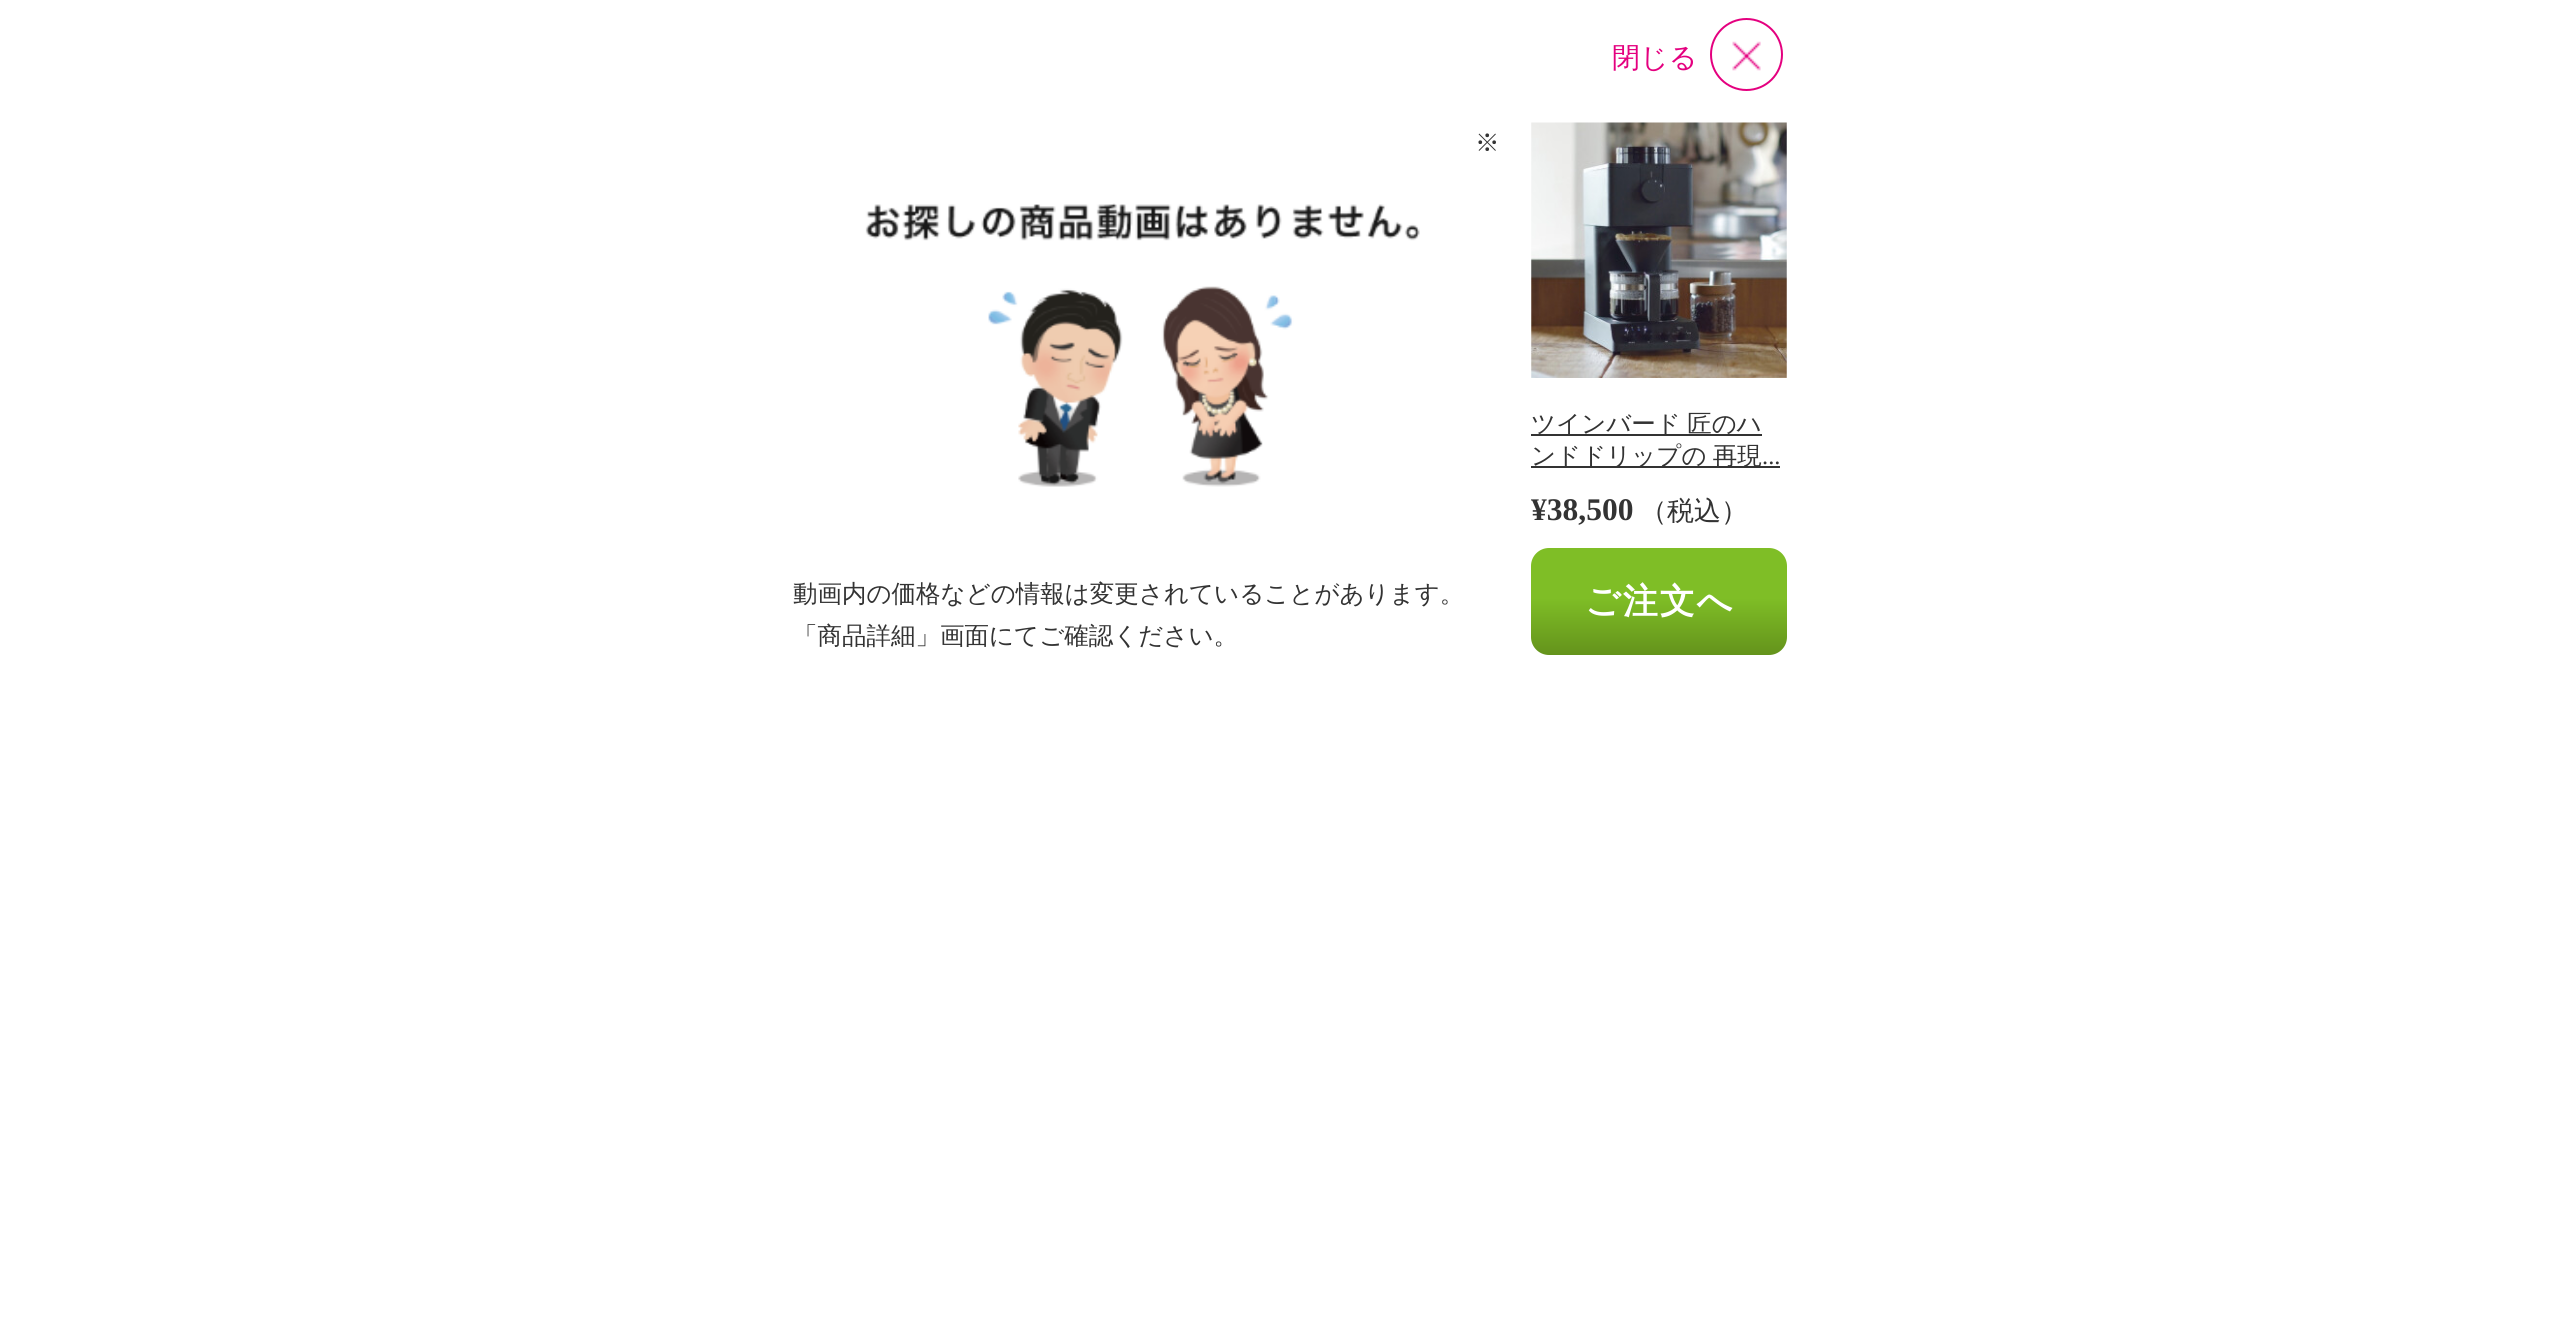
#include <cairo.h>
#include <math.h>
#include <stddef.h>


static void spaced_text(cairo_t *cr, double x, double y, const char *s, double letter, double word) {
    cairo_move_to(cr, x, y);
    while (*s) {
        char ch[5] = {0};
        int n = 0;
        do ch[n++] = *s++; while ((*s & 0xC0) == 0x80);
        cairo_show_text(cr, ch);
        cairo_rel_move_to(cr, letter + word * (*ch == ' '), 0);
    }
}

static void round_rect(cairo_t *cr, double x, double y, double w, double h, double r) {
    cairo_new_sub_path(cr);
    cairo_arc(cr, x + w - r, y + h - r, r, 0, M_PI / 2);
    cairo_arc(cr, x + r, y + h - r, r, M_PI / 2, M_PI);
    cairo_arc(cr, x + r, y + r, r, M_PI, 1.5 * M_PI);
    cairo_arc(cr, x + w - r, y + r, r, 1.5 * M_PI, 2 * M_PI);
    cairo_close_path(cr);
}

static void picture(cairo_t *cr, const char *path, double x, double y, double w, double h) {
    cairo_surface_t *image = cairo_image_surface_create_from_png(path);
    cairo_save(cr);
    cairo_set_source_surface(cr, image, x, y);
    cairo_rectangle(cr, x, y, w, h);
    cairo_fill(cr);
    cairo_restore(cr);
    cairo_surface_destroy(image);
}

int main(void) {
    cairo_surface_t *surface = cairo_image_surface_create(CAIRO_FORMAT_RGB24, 2555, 1323);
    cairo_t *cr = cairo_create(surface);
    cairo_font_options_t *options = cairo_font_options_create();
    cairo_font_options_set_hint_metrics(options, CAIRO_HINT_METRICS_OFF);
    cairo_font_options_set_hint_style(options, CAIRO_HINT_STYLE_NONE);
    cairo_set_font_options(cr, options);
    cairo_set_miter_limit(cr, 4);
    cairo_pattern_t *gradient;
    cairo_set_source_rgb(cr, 1, 1, 1);
    cairo_paint(cr);
    cairo_select_font_face(cr, "WenQuanYi Zen Hei Medium", CAIRO_FONT_SLANT_NORMAL, CAIRO_FONT_WEIGHT_NORMAL);
    cairo_set_font_size(cr, 28);
    cairo_set_source_rgb(cr, 0.894, 0, 0.498);
    cairo_move_to(cr, 1612, 67);
    cairo_show_text(cr, "閉じる");
    picture(cr, "img1.png", 1713, 23, 66, 48);
    cairo_arc(cr, 1746.5, 54.5, 35.5, 0, 2 * M_PI);
    cairo_stroke(cr);
    cairo_set_font_size(cr, 24.5);
    cairo_set_source_rgb(cr, 0.2, 0.2, 0.2);
    cairo_move_to(cr, 1475, 151);
    cairo_show_text(cr, "※");
    cairo_move_to(cr, 793, 602);
    cairo_show_text(cr, "動画内の価格などの情報は変更されていることがあります。");
    cairo_move_to(cr, 793, 644);
    cairo_show_text(cr, "「商品詳細」画面にてご確認ください。");
    picture(cr, "img2.png", 865, 203, 555, 284);
    picture(cr, "img3.png", 1531, 122, 256, 256);
    cairo_rectangle(cr, 1531, 434, 231, 2);
    cairo_fill(cr);
    spaced_text(cr, 1531, 432, "ツインバード 匠のハ", 0, -1);
    cairo_rectangle(cr, 1531, 466, 249, 2);
    cairo_fill(cr);
    spaced_text(cr, 1531, 464, "ンドドリップの 再現", 0, -1);
    cairo_select_font_face(cr, "Liberation Serif", CAIRO_FONT_SLANT_NORMAL, CAIRO_FONT_WEIGHT_NORMAL);
    cairo_move_to(cr, 1762, 464);
    cairo_show_text(cr, "...");
    cairo_select_font_face(cr, "Liberation Serif", CAIRO_FONT_SLANT_NORMAL, CAIRO_FONT_WEIGHT_BOLD);
    cairo_set_font_size(cr, 31.5);
    cairo_move_to(cr, 1531, 520);
    cairo_show_text(cr, "¥38,500");
    cairo_select_font_face(cr, "WenQuanYi Zen Hei Medium", CAIRO_FONT_SLANT_NORMAL, CAIRO_FONT_WEIGHT_NORMAL);
    cairo_set_font_size(cr, 27);
    cairo_move_to(cr, 1640, 520);
    cairo_show_text(cr, "（税込）");
    gradient = cairo_pattern_create_linear(1659, 548, 1659, 664);
    cairo_pattern_add_color_stop_rgba(gradient, 0.43, 0.498, 0.745, 0.149, 1);
    cairo_pattern_add_color_stop_rgba(gradient, 1, 0.376, 0.549, 0.102, 1);
    cairo_set_source(cr, gradient);
    cairo_pattern_destroy(gradient);
    round_rect(cr, 1531, 548, 256, 107, 18);
    cairo_fill(cr);
    cairo_select_font_face(cr, "WenQuanYi Zen Hei", CAIRO_FONT_SLANT_NORMAL, CAIRO_FONT_WEIGHT_BOLD);
    cairo_set_font_size(cr, 35);
    cairo_set_source_rgb(cr, 1, 1, 1);
    spaced_text(cr, 1585, 613, "ご注文へ", 2, 0);
    cairo_surface_write_to_png(surface, "page.png");
    cairo_font_options_destroy(options);
    cairo_destroy(cr);
    cairo_surface_destroy(surface);
    return 0;
}
